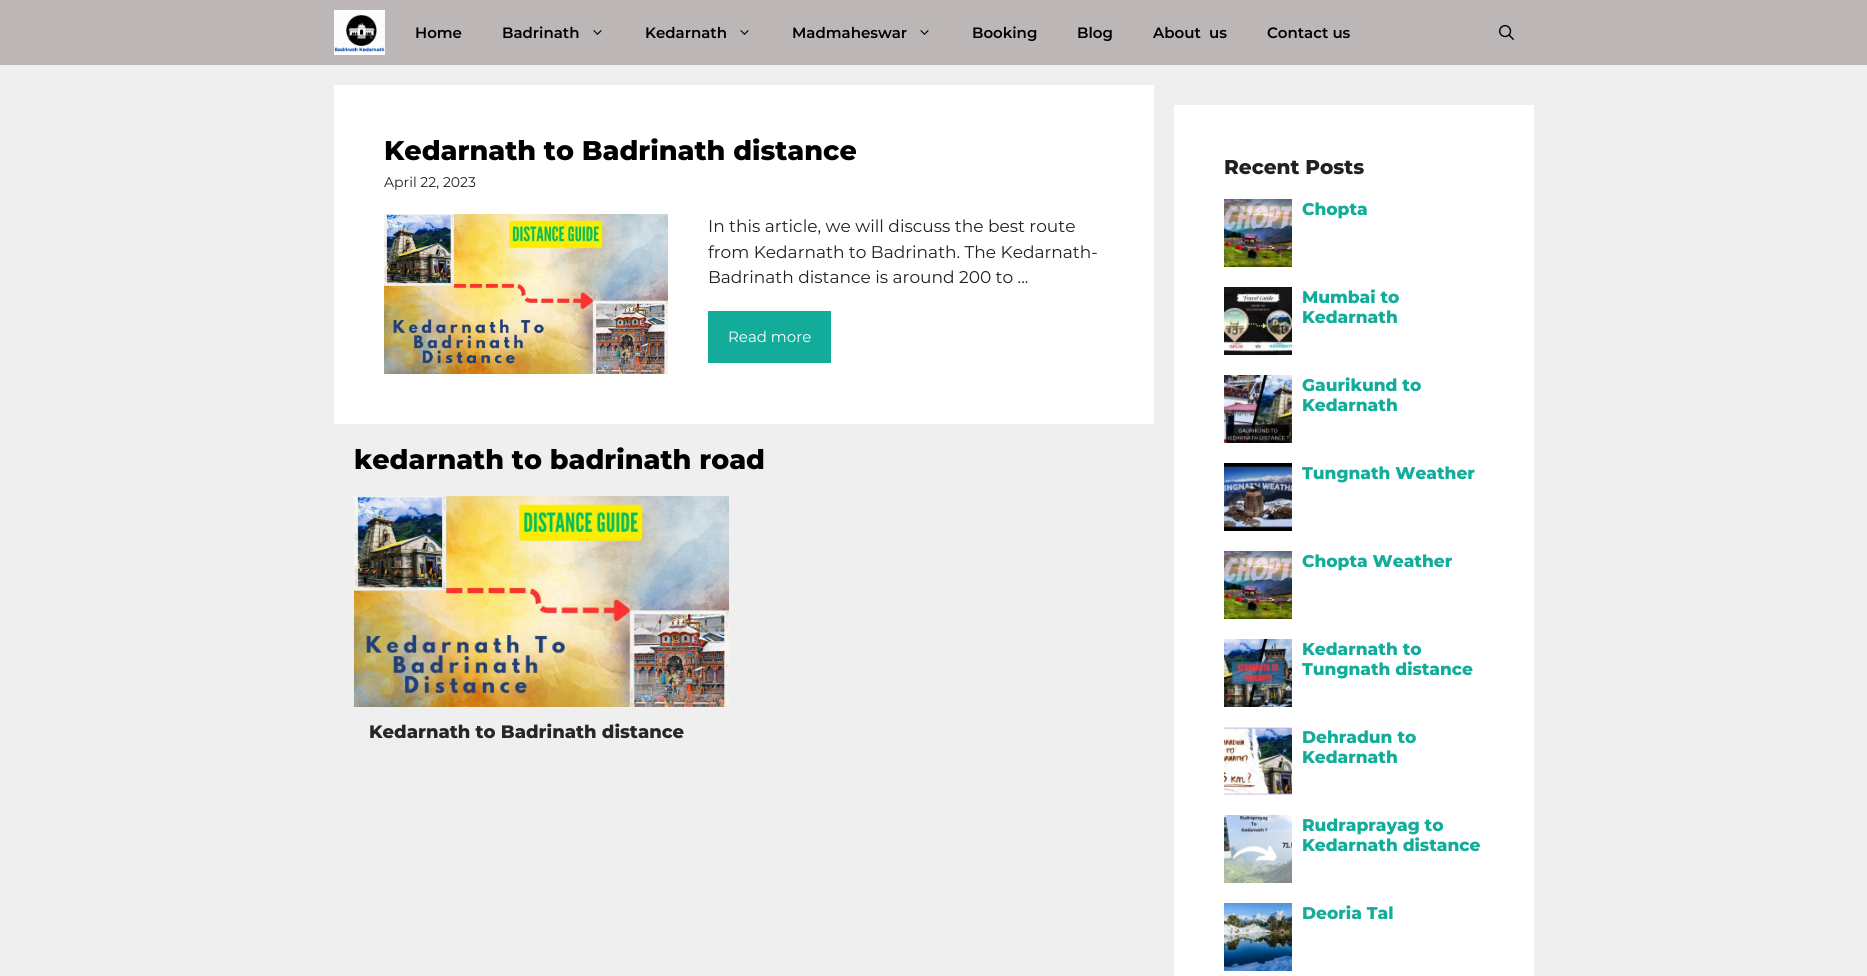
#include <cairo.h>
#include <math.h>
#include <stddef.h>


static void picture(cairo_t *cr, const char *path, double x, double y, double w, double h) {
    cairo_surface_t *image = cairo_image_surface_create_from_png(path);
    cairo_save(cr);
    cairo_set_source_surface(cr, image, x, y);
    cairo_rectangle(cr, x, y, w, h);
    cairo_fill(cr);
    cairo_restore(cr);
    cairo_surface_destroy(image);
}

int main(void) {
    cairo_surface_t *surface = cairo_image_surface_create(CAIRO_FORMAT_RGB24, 1867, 976);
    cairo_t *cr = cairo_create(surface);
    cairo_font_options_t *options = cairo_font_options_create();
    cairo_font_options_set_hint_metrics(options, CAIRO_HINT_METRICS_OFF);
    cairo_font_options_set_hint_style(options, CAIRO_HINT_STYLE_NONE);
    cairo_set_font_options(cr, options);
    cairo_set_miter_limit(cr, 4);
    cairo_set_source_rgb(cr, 0.937, 0.937, 0.937);
    cairo_paint(cr);
    cairo_set_source_rgb(cr, 0.737, 0.714, 0.714);
    cairo_rectangle(cr, 0, 0, 1867, 65);
    cairo_fill(cr);
    picture(cr, "img1.png", 334, 10, 51, 45);
    cairo_select_font_face(cr, "Montserrat SemiBold", CAIRO_FONT_SLANT_NORMAL, CAIRO_FONT_WEIGHT_NORMAL);
    cairo_set_font_size(cr, 15);
    cairo_set_source_rgb(cr, 0, 0, 0);
    cairo_move_to(cr, 415, 38);
    cairo_show_text(cr, "Home");
    cairo_move_to(cr, 502, 38);
    cairo_show_text(cr, "Badrinath");
    picture(cr, "img2.png", 593, 30, 9, 5);
    cairo_move_to(cr, 645, 38);
    cairo_show_text(cr, "Kedarnath");
    picture(cr, "img2.png", 740, 30, 9, 5);
    cairo_move_to(cr, 792, 38);
    cairo_show_text(cr, "Madmaheswar");
    picture(cr, "img2.png", 920, 30, 9, 5);
    cairo_move_to(cr, 972, 38);
    cairo_show_text(cr, "Booking");
    cairo_move_to(cr, 1077, 38);
    cairo_show_text(cr, "Blog");
    cairo_move_to(cr, 1153, 38);
    cairo_show_text(cr, "About  us");
    cairo_move_to(cr, 1267, 38);
    cairo_show_text(cr, "Contact us");
    picture(cr, "img3.png", 1499, 25, 15, 15);
    cairo_set_source_rgb(cr, 1, 1, 1);
    cairo_rectangle(cr, 334, 85, 820, 339);
    cairo_fill(cr);
    cairo_select_font_face(cr, "Montserrat ExtraBold", CAIRO_FONT_SLANT_NORMAL, CAIRO_FONT_WEIGHT_NORMAL);
    cairo_set_font_size(cr, 27);
    cairo_set_source_rgb(cr, 0, 0, 0);
    cairo_move_to(cr, 384, 160);
    cairo_show_text(cr, "Kedarnath to Badrinath distance");
    cairo_select_font_face(cr, "Montserrat", CAIRO_FONT_SLANT_NORMAL, CAIRO_FONT_WEIGHT_NORMAL);
    cairo_set_font_size(cr, 14);
    cairo_set_source_rgb(cr, 0.129, 0.129, 0.129);
    cairo_move_to(cr, 384, 187);
    cairo_show_text(cr, "April 22, 2023");
    picture(cr, "img4.png", 384, 214, 284, 160);
    cairo_set_font_size(cr, 17);
    cairo_move_to(cr, 708, 232);
    cairo_show_text(cr, "In this article, we will discuss the best route");
    cairo_move_to(cr, 708, 258);
    cairo_show_text(cr, "from Kedarnath to Badrinath. The Kedarnath-");
    cairo_move_to(cr, 708, 283);
    cairo_show_text(cr, "Badrinath distance is around 200 to ...");
    cairo_set_source_rgb(cr, 0.075, 0.675, 0.604);
    cairo_rectangle(cr, 708, 311, 123, 52);
    cairo_fill(cr);
    cairo_set_font_size(cr, 15);
    cairo_set_source_rgb(cr, 1, 1, 1);
    cairo_move_to(cr, 728, 342);
    cairo_show_text(cr, "Read more");
    cairo_select_font_face(cr, "Montserrat ExtraBold", CAIRO_FONT_SLANT_NORMAL, CAIRO_FONT_WEIGHT_NORMAL);
    cairo_set_font_size(cr, 27);
    cairo_set_source_rgb(cr, 0, 0, 0);
    cairo_move_to(cr, 354, 469);
    cairo_show_text(cr, "kedarnath to badrinath road");
    picture(cr, "img5.png", 354, 496, 375, 211);
    cairo_set_font_size(cr, 18);
    cairo_set_source_rgb(cr, 0.153, 0.153, 0.153);
    cairo_move_to(cr, 369, 738);
    cairo_show_text(cr, "Kedarnath to Badrinath distance");
    cairo_set_source_rgb(cr, 1, 1, 1);
    cairo_rectangle(cr, 1174, 105, 360, 871);
    cairo_fill(cr);
    cairo_set_font_size(cr, 20);
    cairo_set_source_rgb(cr, 0.129, 0.129, 0.129);
    cairo_move_to(cr, 1224, 174);
    cairo_show_text(cr, "Recent Posts");
    picture(cr, "img6.png", 1224, 199, 68, 68);
    cairo_set_font_size(cr, 17);
    cairo_set_source_rgb(cr, 0.075, 0.675, 0.604);
    cairo_move_to(cr, 1302, 215);
    cairo_show_text(cr, "Chopta");
    picture(cr, "img7.png", 1224, 287, 68, 68);
    cairo_move_to(cr, 1302, 303);
    cairo_show_text(cr, "Mumbai to");
    cairo_move_to(cr, 1302, 323);
    cairo_show_text(cr, "Kedarnath");
    picture(cr, "img8.png", 1224, 375, 68, 68);
    cairo_move_to(cr, 1302, 391);
    cairo_show_text(cr, "Gaurikund to");
    cairo_move_to(cr, 1302, 411);
    cairo_show_text(cr, "Kedarnath");
    picture(cr, "img9.png", 1224, 463, 68, 68);
    cairo_move_to(cr, 1302, 479);
    cairo_show_text(cr, "Tungnath Weather");
    picture(cr, "img6.png", 1224, 551, 68, 68);
    cairo_move_to(cr, 1302, 567);
    cairo_show_text(cr, "Chopta Weather");
    picture(cr, "img10.png", 1224, 639, 68, 68);
    cairo_move_to(cr, 1302, 655);
    cairo_show_text(cr, "Kedarnath to");
    cairo_move_to(cr, 1302, 675);
    cairo_show_text(cr, "Tungnath distance");
    picture(cr, "img11.png", 1224, 727, 68, 68);
    cairo_move_to(cr, 1302, 743);
    cairo_show_text(cr, "Dehradun to");
    cairo_move_to(cr, 1302, 763);
    cairo_show_text(cr, "Kedarnath");
    picture(cr, "img12.png", 1224, 815, 68, 68);
    cairo_move_to(cr, 1302, 831);
    cairo_show_text(cr, "Rudraprayag to");
    cairo_move_to(cr, 1302, 851);
    cairo_show_text(cr, "Kedarnath distance");
    picture(cr, "img13.png", 1224, 903, 68, 68);
    cairo_move_to(cr, 1302, 919);
    cairo_show_text(cr, "Deoria Tal");
    cairo_surface_write_to_png(surface, "page.png");
    cairo_font_options_destroy(options);
    cairo_destroy(cr);
    cairo_surface_destroy(surface);
    return 0;
}
